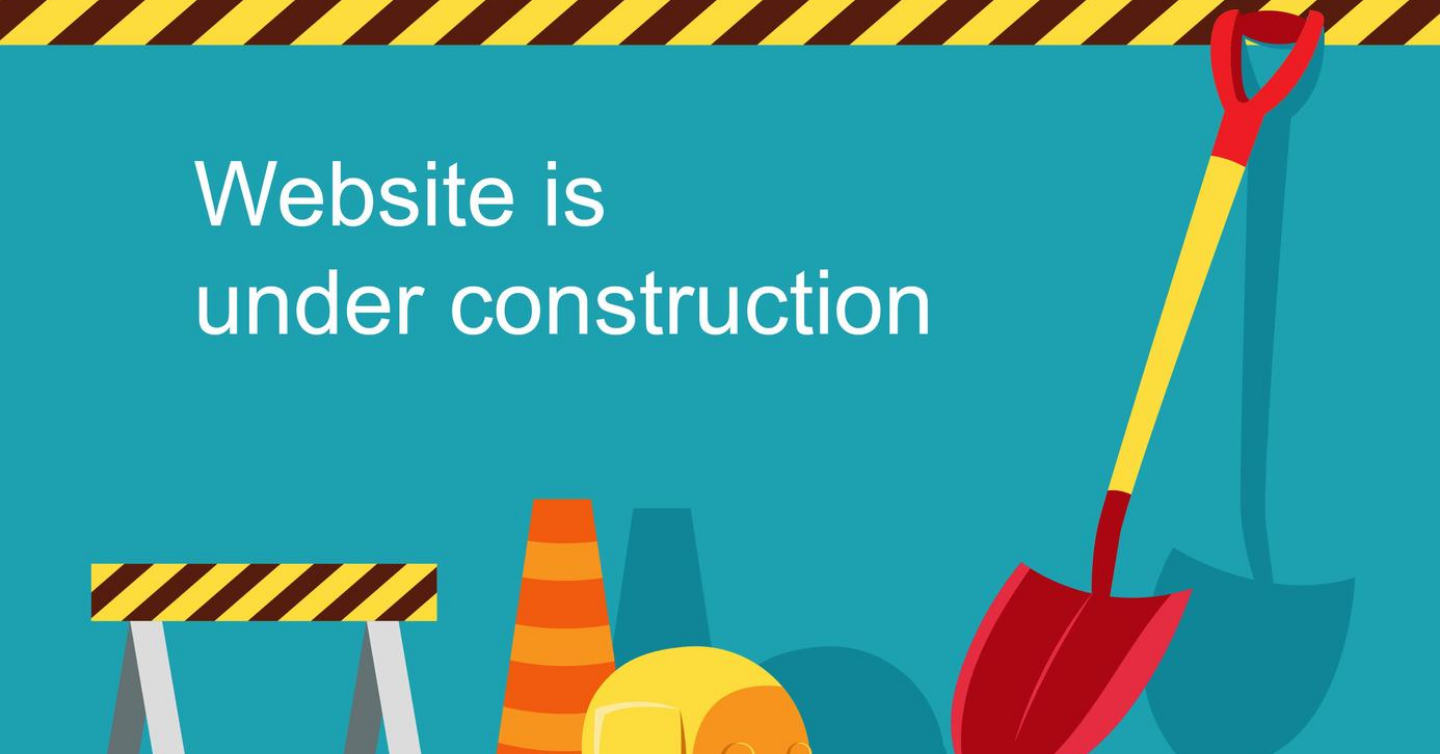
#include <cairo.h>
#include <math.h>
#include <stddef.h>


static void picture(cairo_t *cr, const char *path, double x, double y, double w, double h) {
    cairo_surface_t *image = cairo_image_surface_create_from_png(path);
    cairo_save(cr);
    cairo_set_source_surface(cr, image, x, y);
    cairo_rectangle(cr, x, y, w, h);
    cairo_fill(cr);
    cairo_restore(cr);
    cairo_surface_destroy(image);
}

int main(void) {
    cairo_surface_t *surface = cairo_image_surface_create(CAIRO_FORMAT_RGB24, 1440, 754);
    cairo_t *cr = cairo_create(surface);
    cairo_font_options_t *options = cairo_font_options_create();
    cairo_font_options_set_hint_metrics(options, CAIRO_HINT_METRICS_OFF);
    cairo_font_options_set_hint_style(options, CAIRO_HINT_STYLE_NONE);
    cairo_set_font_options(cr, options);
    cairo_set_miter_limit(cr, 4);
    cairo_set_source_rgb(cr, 1, 1, 1);
    cairo_paint(cr);
    picture(cr, "img1.png", 0, 0, 1440, 754);
    cairo_surface_write_to_png(surface, "page.png");
    cairo_font_options_destroy(options);
    cairo_destroy(cr);
    cairo_surface_destroy(surface);
    return 0;
}
